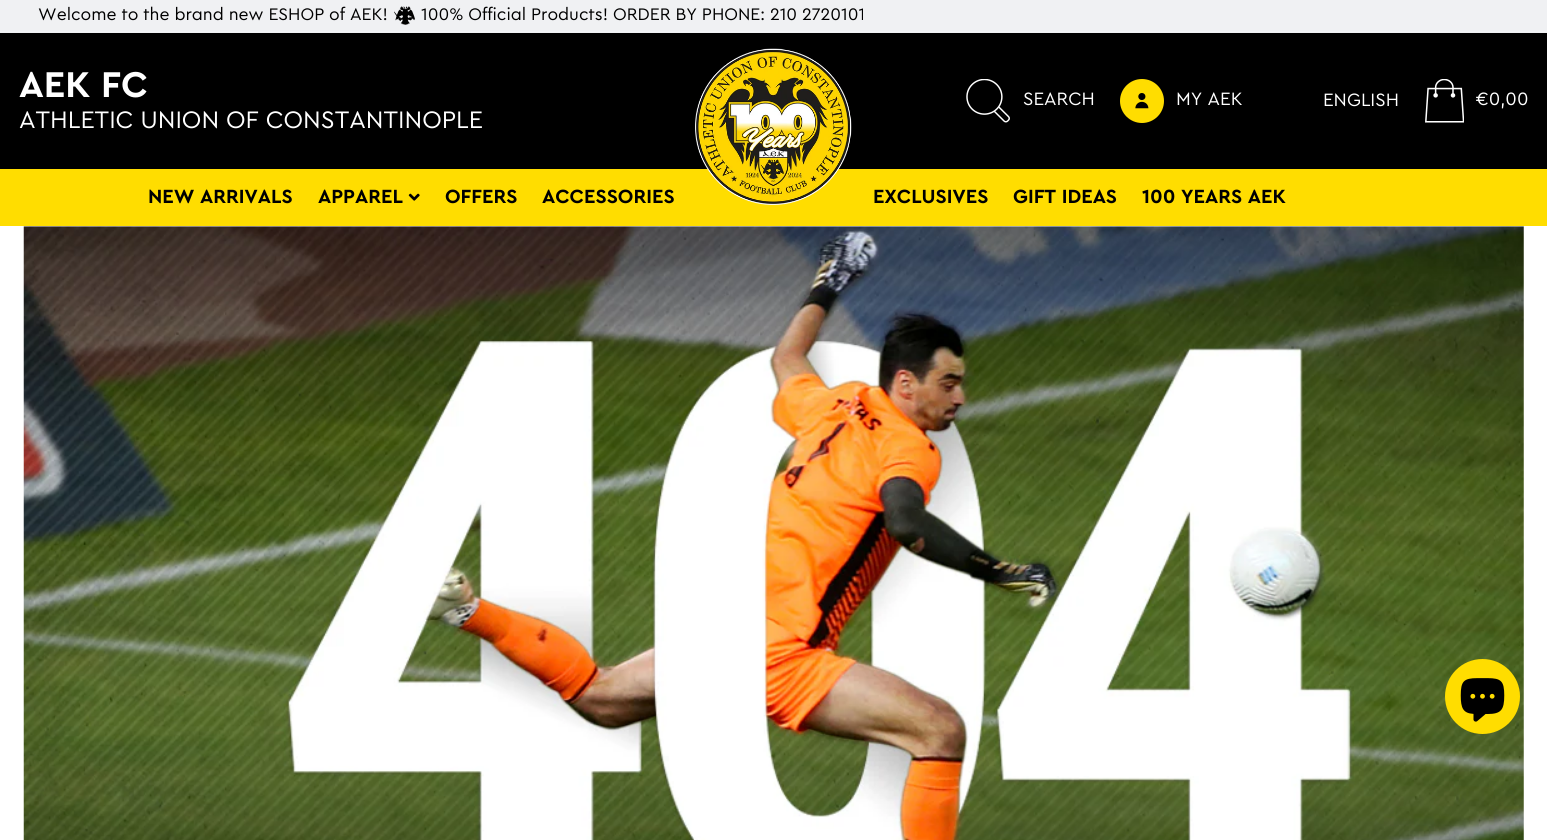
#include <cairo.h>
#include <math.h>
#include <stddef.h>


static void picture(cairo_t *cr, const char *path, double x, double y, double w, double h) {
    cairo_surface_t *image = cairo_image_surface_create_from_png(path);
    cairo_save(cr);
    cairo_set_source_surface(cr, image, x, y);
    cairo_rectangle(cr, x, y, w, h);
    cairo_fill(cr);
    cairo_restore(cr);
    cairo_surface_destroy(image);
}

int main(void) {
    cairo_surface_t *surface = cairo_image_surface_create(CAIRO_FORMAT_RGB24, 1547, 840);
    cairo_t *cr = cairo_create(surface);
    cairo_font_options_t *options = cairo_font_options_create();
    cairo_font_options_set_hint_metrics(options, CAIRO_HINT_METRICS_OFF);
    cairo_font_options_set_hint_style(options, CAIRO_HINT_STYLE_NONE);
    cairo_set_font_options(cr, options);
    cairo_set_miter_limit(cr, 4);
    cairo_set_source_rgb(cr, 1, 1, 1);
    cairo_paint(cr);
    cairo_set_source_rgb(cr, 0.941, 0.945, 0.953);
    cairo_rectangle(cr, 0, 0, 1547, 33);
    cairo_fill(cr);
    cairo_set_source_rgb(cr, 0.953, 0.957, 0.961);
    cairo_rectangle(cr, 0, 31, 1547, 1);
    cairo_fill(cr);
    cairo_select_font_face(cr, "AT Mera", CAIRO_FONT_SLANT_NORMAL, CAIRO_FONT_WEIGHT_NORMAL);
    cairo_set_font_size(cr, 17.5);
    cairo_set_source_rgb(cr, 0, 0, 0);
    cairo_move_to(cr, 38, 20);
    cairo_show_text(cr, "Welcome to the brand new ESHOP of AEK!");
    picture(cr, "img1.png", 394, 6, 21, 19);
    cairo_move_to(cr, 421, 20);
    cairo_show_text(cr, "100% Official Products! ORDER BY PHONE: 210 2720101");
    cairo_rectangle(cr, 0, 33, 1547, 136);
    cairo_fill(cr);
    cairo_select_font_face(cr, "AT Mera", CAIRO_FONT_SLANT_NORMAL, CAIRO_FONT_WEIGHT_BOLD);
    cairo_set_font_size(cr, 37.5);
    cairo_set_source_rgb(cr, 1, 1, 1);
    cairo_move_to(cr, 19, 97);
    cairo_show_text(cr, "AEK FC");
    cairo_select_font_face(cr, "AT Mera", CAIRO_FONT_SLANT_NORMAL, CAIRO_FONT_WEIGHT_NORMAL);
    cairo_set_font_size(cr, 25);
    cairo_move_to(cr, 19, 128);
    cairo_show_text(cr, "ATHLETIC UNION OF CONSTANTINOPLE");
    cairo_set_source_rgb(cr, 1, 0.867, 0);
    cairo_rectangle(cr, 0, 169, 1547, 57);
    cairo_fill(cr);
    picture(cr, "img2.png", 695, 48, 157, 157);
    picture(cr, "img3.png", 966, 79, 44, 44);
    cairo_set_font_size(cr, 18.75);
    cairo_set_source_rgb(cr, 1, 1, 1);
    cairo_move_to(cr, 1023, 105);
    cairo_show_text(cr, "SEARCH");
    picture(cr, "img4.png", 1120, 79, 44, 44);
    cairo_move_to(cr, 1176, 105);
    cairo_show_text(cr, "MY AEK");
    cairo_move_to(cr, 1323, 106);
    cairo_show_text(cr, "ENGLISH");
    picture(cr, "img5.png", 1425, 79, 39, 44);
    cairo_move_to(cr, 1476, 105);
    cairo_show_text(cr, "€0,00");
    cairo_select_font_face(cr, "AT Mera", CAIRO_FONT_SLANT_NORMAL, CAIRO_FONT_WEIGHT_BOLD);
    cairo_set_font_size(cr, 20);
    cairo_set_source_rgb(cr, 0, 0, 0);
    cairo_move_to(cr, 148, 203);
    cairo_show_text(cr, "NEW ARRIVALS");
    cairo_move_to(cr, 318, 203);
    cairo_show_text(cr, "APPAREL");
    picture(cr, "img6.png", 408, 193, 12, 8);
    cairo_move_to(cr, 445, 203);
    cairo_show_text(cr, "OFFERS");
    cairo_move_to(cr, 542, 203);
    cairo_show_text(cr, "ACCESSORIES");
    cairo_move_to(cr, 873, 203);
    cairo_show_text(cr, "EXCLUSIVES");
    cairo_move_to(cr, 1013, 203);
    cairo_show_text(cr, "GIFT IDEAS");
    cairo_move_to(cr, 1142, 203);
    cairo_show_text(cr, "100 YEARS AEK");
    picture(cr, "img7.png", 23, 226, 1501, 614);
    cairo_set_source_rgb(cr, 1, 0.867, 0);
    cairo_arc(cr, 1482.5, 696.5, 37.5, 0, 2 * M_PI);
    cairo_fill(cr);
    picture(cr, "img8.png", 1460, 678, 45, 44);
    cairo_surface_write_to_png(surface, "page.png");
    cairo_font_options_destroy(options);
    cairo_destroy(cr);
    cairo_surface_destroy(surface);
    return 0;
}
